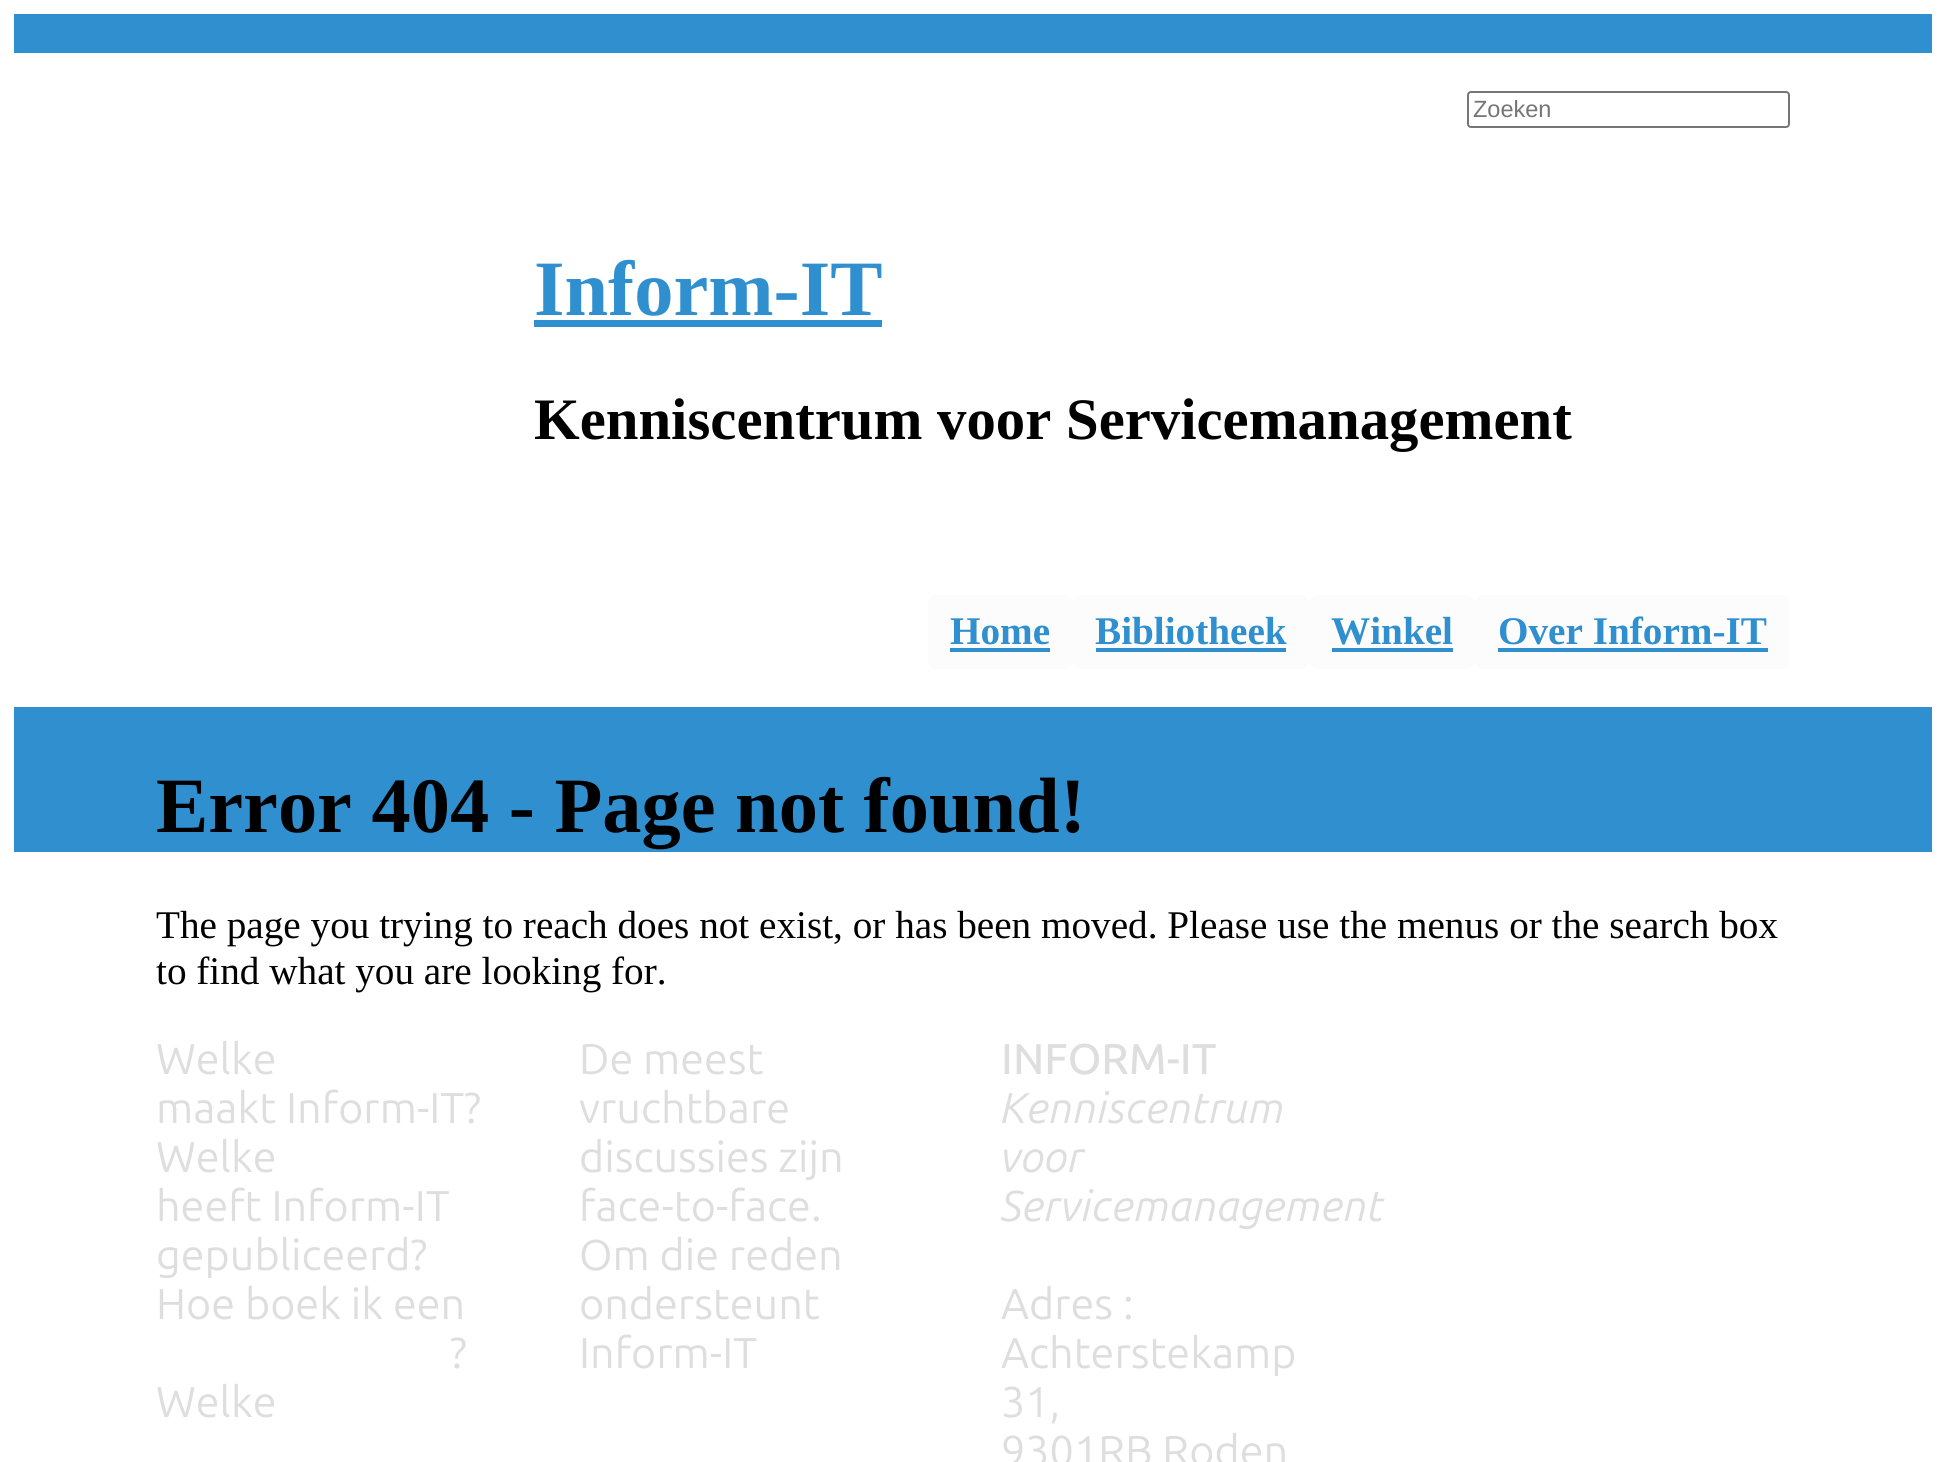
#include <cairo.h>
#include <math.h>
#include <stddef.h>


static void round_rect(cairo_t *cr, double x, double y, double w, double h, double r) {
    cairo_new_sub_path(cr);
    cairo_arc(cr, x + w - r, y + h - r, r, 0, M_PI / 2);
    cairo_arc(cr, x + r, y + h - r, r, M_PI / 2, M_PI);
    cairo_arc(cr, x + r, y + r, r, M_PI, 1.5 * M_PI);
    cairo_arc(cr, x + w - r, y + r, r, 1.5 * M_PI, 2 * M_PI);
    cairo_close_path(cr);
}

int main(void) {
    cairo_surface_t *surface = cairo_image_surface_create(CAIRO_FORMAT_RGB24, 1945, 1462);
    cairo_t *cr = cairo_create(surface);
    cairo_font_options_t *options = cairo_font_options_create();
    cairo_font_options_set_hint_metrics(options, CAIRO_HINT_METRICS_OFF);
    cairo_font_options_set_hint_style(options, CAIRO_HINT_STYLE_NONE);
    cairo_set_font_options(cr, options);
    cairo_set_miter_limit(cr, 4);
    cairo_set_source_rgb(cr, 1, 1, 1);
    cairo_paint(cr);
    cairo_set_source_rgb(cr, 0.188, 0.561, 0.808);
    cairo_rectangle(cr, 14, 14, 1918, 39);
    cairo_fill(cr);
    round_rect(cr, 1468, 92, 321, 35, 3);
    cairo_set_source_rgb(cr, 0.463, 0.463, 0.463);
    cairo_stroke(cr);
    cairo_select_font_face(cr, "Liberation Sans", CAIRO_FONT_SLANT_NORMAL, CAIRO_FONT_WEIGHT_NORMAL);
    cairo_set_font_size(cr, 23.5);
    cairo_set_source_rgb(cr, 0.459, 0.459, 0.459);
    cairo_move_to(cr, 1473, 117);
    cairo_show_text(cr, "Zoeken");
    cairo_select_font_face(cr, "Liberation Serif", CAIRO_FONT_SLANT_NORMAL, CAIRO_FONT_WEIGHT_BOLD);
    cairo_set_font_size(cr, 78.4);
    cairo_set_source_rgb(cr, 0.188, 0.561, 0.808);
    cairo_move_to(cr, 534, 315);
    cairo_show_text(cr, "Inform-IT");
    cairo_rectangle(cr, 534, 320, 348, 7);
    cairo_fill(cr);
    cairo_set_font_size(cr, 58.75);
    cairo_set_source_rgb(cr, 0, 0, 0);
    cairo_move_to(cr, 534, 439);
    cairo_show_text(cr, "Kenniscentrum voor Servicemanagement");
    cairo_set_source_rgb(cr, 0.988, 0.988, 0.988);
    round_rect(cr, 929, 596, 143, 72, 8);
    cairo_fill_preserve(cr);
    cairo_stroke(cr);
    cairo_set_font_size(cr, 39.2);
    cairo_set_source_rgb(cr, 0.188, 0.561, 0.808);
    cairo_move_to(cr, 950, 644);
    cairo_show_text(cr, "Home");
    cairo_rectangle(cr, 950, 648, 100, 4);
    cairo_fill(cr);
    cairo_set_source_rgb(cr, 0.988, 0.988, 0.988);
    round_rect(cr, 1074, 596, 234, 72, 8);
    cairo_fill_preserve(cr);
    cairo_stroke(cr);
    cairo_set_source_rgb(cr, 0.188, 0.561, 0.808);
    cairo_move_to(cr, 1095, 644);
    cairo_show_text(cr, "Bibliotheek");
    cairo_rectangle(cr, 1096, 648, 190, 4);
    cairo_fill(cr);
    cairo_set_source_rgb(cr, 0.988, 0.988, 0.988);
    round_rect(cr, 1310, 596, 164, 72, 8);
    cairo_fill_preserve(cr);
    cairo_stroke(cr);
    cairo_set_source_rgb(cr, 0.188, 0.561, 0.808);
    cairo_move_to(cr, 1331, 644);
    cairo_show_text(cr, "Winkel");
    cairo_rectangle(cr, 1332, 648, 121, 4);
    cairo_fill(cr);
    cairo_set_source_rgb(cr, 0.988, 0.988, 0.988);
    round_rect(cr, 1476, 596, 313, 72, 8);
    cairo_fill_preserve(cr);
    cairo_stroke(cr);
    cairo_set_source_rgb(cr, 0.188, 0.561, 0.808);
    cairo_move_to(cr, 1498, 644);
    cairo_show_text(cr, "Over Inform-IT");
    cairo_rectangle(cr, 1498, 648, 270, 4);
    cairo_fill(cr);
    cairo_rectangle(cr, 14, 707, 1918, 145);
    cairo_fill(cr);
    cairo_set_font_size(cr, 78.4);
    cairo_set_source_rgb(cr, 0, 0, 0);
    cairo_move_to(cr, 156, 832);
    cairo_show_text(cr, "Error 404 - Page not found!");
    cairo_select_font_face(cr, "Liberation Serif", CAIRO_FONT_SLANT_NORMAL, CAIRO_FONT_WEIGHT_NORMAL);
    cairo_set_font_size(cr, 39.2);
    cairo_move_to(cr, 156, 938);
    cairo_show_text(cr, "The page you trying to reach does not exist, or has been moved. Please use the menus or the search box");
    cairo_move_to(cr, 156, 984);
    cairo_show_text(cr, "to find what you are looking for.");
    cairo_select_font_face(cr, "Ubuntu", CAIRO_FONT_SLANT_NORMAL, CAIRO_FONT_WEIGHT_NORMAL);
    cairo_set_font_size(cr, 43.1);
    cairo_set_source_rgb(cr, 0.871, 0.871, 0.871);
    cairo_move_to(cr, 156, 1074);
    cairo_show_text(cr, "Welke");
    cairo_move_to(cr, 156, 1123);
    cairo_show_text(cr, "maakt Inform-IT?");
    cairo_move_to(cr, 156, 1172);
    cairo_show_text(cr, "Welke");
    cairo_move_to(cr, 156, 1221);
    cairo_show_text(cr, "heeft Inform-IT");
    cairo_move_to(cr, 156, 1270);
    cairo_show_text(cr, "gepubliceerd?");
    cairo_move_to(cr, 156, 1319);
    cairo_show_text(cr, "Hoe boek ik een");
    cairo_move_to(cr, 450, 1368);
    cairo_show_text(cr, "?");
    cairo_move_to(cr, 156, 1417);
    cairo_show_text(cr, "Welke");
    cairo_move_to(cr, 579, 1074);
    cairo_show_text(cr, "De meest");
    cairo_move_to(cr, 579, 1123);
    cairo_show_text(cr, "vruchtbare");
    cairo_move_to(cr, 579, 1172);
    cairo_show_text(cr, "discussies zijn");
    cairo_move_to(cr, 579, 1221);
    cairo_show_text(cr, "face-to-face.");
    cairo_move_to(cr, 579, 1270);
    cairo_show_text(cr, "Om die reden");
    cairo_move_to(cr, 579, 1319);
    cairo_show_text(cr, "ondersteunt");
    cairo_move_to(cr, 579, 1368);
    cairo_show_text(cr, "Inform-IT");
    cairo_select_font_face(cr, "Ubuntu Medium", CAIRO_FONT_SLANT_NORMAL, CAIRO_FONT_WEIGHT_NORMAL);
    cairo_move_to(cr, 1001, 1074);
    cairo_show_text(cr, "INFORM-IT");
    cairo_select_font_face(cr, "Ubuntu", CAIRO_FONT_SLANT_ITALIC, CAIRO_FONT_WEIGHT_NORMAL);
    cairo_move_to(cr, 1001, 1123);
    cairo_show_text(cr, "Kenniscentrum");
    cairo_move_to(cr, 1001, 1172);
    cairo_show_text(cr, "voor");
    cairo_move_to(cr, 1001, 1221);
    cairo_show_text(cr, "Servicemanagement");
    cairo_select_font_face(cr, "Ubuntu", CAIRO_FONT_SLANT_NORMAL, CAIRO_FONT_WEIGHT_NORMAL);
    cairo_move_to(cr, 1001, 1319);
    cairo_show_text(cr, "Adres :");
    cairo_move_to(cr, 1001, 1368);
    cairo_show_text(cr, "Achterstekamp");
    cairo_move_to(cr, 1001, 1417);
    cairo_show_text(cr, "31,");
    cairo_move_to(cr, 1001, 1466);
    cairo_show_text(cr, "9301RB Roden");
    cairo_surface_write_to_png(surface, "page.png");
    cairo_font_options_destroy(options);
    cairo_destroy(cr);
    cairo_surface_destroy(surface);
    return 0;
}
